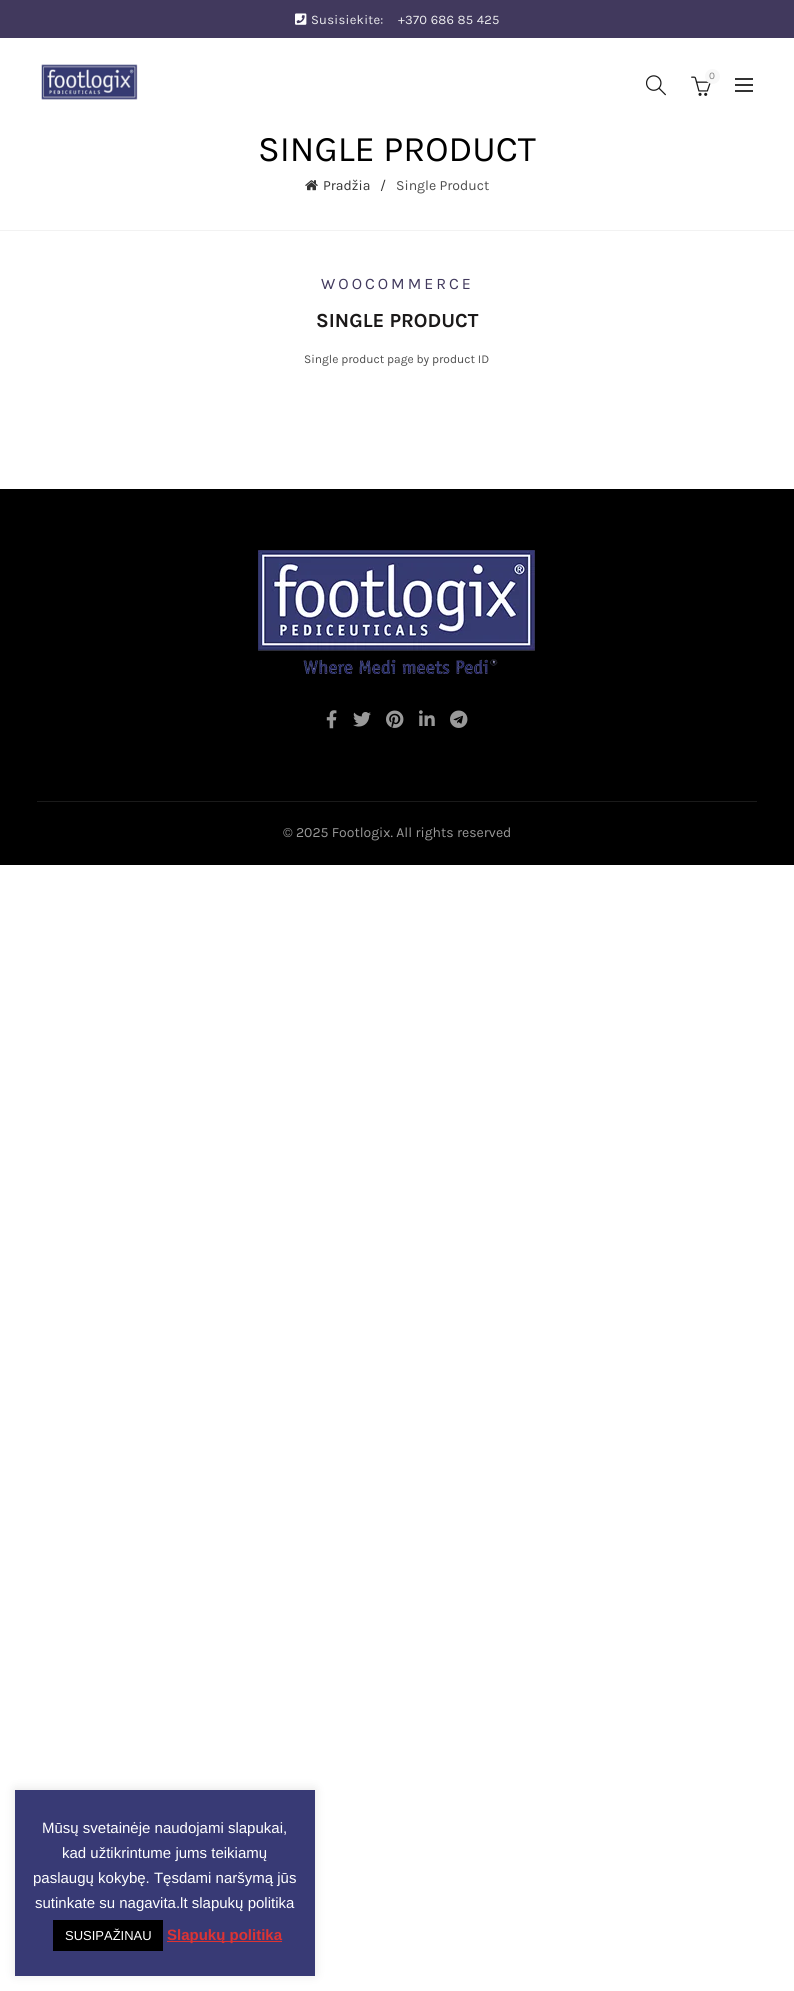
#include <cairo.h>
#include <math.h>
#include <stddef.h>


static void spaced_text(cairo_t *cr, double x, double y, const char *s, double letter, double word) {
    cairo_move_to(cr, x, y);
    while (*s) {
        char ch[5] = {0};
        int n = 0;
        do ch[n++] = *s++; while ((*s & 0xC0) == 0x80);
        cairo_show_text(cr, ch);
        cairo_rel_move_to(cr, letter + word * (*ch == ' '), 0);
    }
}

static void round_rect(cairo_t *cr, double x, double y, double w, double h, double r) {
    cairo_new_sub_path(cr);
    cairo_arc(cr, x + w - r, y + h - r, r, 0, M_PI / 2);
    cairo_arc(cr, x + r, y + h - r, r, M_PI / 2, M_PI);
    cairo_arc(cr, x + r, y + r, r, M_PI, 1.5 * M_PI);
    cairo_arc(cr, x + w - r, y + r, r, 1.5 * M_PI, 2 * M_PI);
    cairo_close_path(cr);
}

static void shadow(cairo_t *cr, double x, double y, double w, double h, double r, double blur, double alpha) {
    cairo_push_group_with_content(cr, CAIRO_CONTENT_ALPHA);
    cairo_set_operator(cr, CAIRO_OPERATOR_SOURCE);
    for (int i = 15; i >= -15 && fmin(w, h) + blur * i / 3 > 0; i -= 2) {
        double e = blur * i / 6;
        cairo_set_source_rgba(cr, 0, 0, 0, alpha * erfc((i - 1) / 8.5) / 2);
        round_rect(cr, x - e, y - e, w + 2 * e, h + 2 * e, fmax(0, fmin(r + e + blur * .6, fmin(w, h) / 2 + e)));
        cairo_fill(cr);
    }
    cairo_pattern_t *soft = cairo_pop_group(cr);
    cairo_mask(cr, soft);
    cairo_pattern_destroy(soft);
}

static void picture(cairo_t *cr, const char *path, double x, double y, double w, double h) {
    cairo_surface_t *image = cairo_image_surface_create_from_png(path);
    cairo_save(cr);
    cairo_set_source_surface(cr, image, x, y);
    cairo_rectangle(cr, x, y, w, h);
    cairo_fill(cr);
    cairo_restore(cr);
    cairo_surface_destroy(image);
}

int main(void) {
    cairo_surface_t *surface = cairo_image_surface_create(CAIRO_FORMAT_RGB24, 794, 1991);
    cairo_t *cr = cairo_create(surface);
    cairo_font_options_t *options = cairo_font_options_create();
    cairo_font_options_set_hint_metrics(options, CAIRO_HINT_METRICS_OFF);
    cairo_font_options_set_hint_style(options, CAIRO_HINT_STYLE_NONE);
    cairo_set_font_options(cr, options);
    cairo_set_miter_limit(cr, 4);
    cairo_set_source_rgb(cr, 1, 1, 1);
    cairo_paint(cr);
    cairo_set_source_rgb(cr, 0.255, 0.224, 0.365);
    cairo_rectangle(cr, 0, 0, 794, 38);
    cairo_fill(cr);
    picture(cr, "img1.png", 295, 13, 12, 12);
    cairo_select_font_face(cr, "Karla", CAIRO_FONT_SLANT_NORMAL, CAIRO_FONT_WEIGHT_NORMAL);
    cairo_set_font_size(cr, 13);
    cairo_set_source_rgb(cr, 0.925, 0.922, 0.937);
    spaced_text(cr, 311, 24, "Susisiekite:", 0.25, 0);
    spaced_text(cr, 398, 24, "+370 686 85 425", 0.25, 0);
    picture(cr, "img2.png", 41, 64, 97, 36);
    picture(cr, "img3.png", 646, 75, 20, 21);
    picture(cr, "img4.png", 691, 76, 20, 20);
    cairo_set_source_rgb(cr, 0.969, 0.969, 0.969);
    cairo_arc(cr, 712.5, 76.5, 7.5, 0, 2 * M_PI);
    cairo_fill(cr);
    cairo_set_font_size(cr, 10);
    cairo_set_source_rgb(cr, 0.494, 0.494, 0.494);
    cairo_move_to(cr, 709, 79);
    cairo_show_text(cr, "0");
    cairo_set_source_rgb(cr, 0.2, 0.2, 0.2);
    cairo_rectangle(cr, 735, 84, 18, 2);
    cairo_fill(cr);
    cairo_rectangle(cr, 735, 78, 18, 2);
    cairo_fill(cr);
    cairo_rectangle(cr, 735, 90, 18, 2);
    cairo_fill(cr);
    cairo_set_source_rgb(cr, 0.949, 0.949, 0.949);
    cairo_rectangle(cr, 0, 230, 794, 1);
    cairo_fill(cr);
    cairo_set_font_size(cr, 36);
    cairo_set_source_rgb(cr, 0, 0, 0);
    cairo_move_to(cr, 258, 161);
    cairo_show_text(cr, "SINGLE PRODUCT");
    picture(cr, "img5.png", 305, 180, 13, 11);
    cairo_set_font_size(cr, 14);
    cairo_set_source_rgb(cr, 0.2, 0.2, 0.2);
    cairo_move_to(cr, 323, 190);
    cairo_show_text(cr, "Pradžia");
    cairo_move_to(cr, 380, 190);
    cairo_show_text(cr, "/");
    cairo_set_source_rgb(cr, 0.302, 0.302, 0.302);
    cairo_move_to(cr, 396, 190);
    cairo_show_text(cr, "Single Product");
    cairo_set_font_size(cr, 16);
    cairo_set_source_rgb(cr, 0.255, 0.224, 0.365);
    spaced_text(cr, 321, 289, "WOOCOMMERCE", 3, 0);
    cairo_select_font_face(cr, "Karla", CAIRO_FONT_SLANT_NORMAL, CAIRO_FONT_WEIGHT_BOLD);
    cairo_set_font_size(cr, 20);
    cairo_set_source_rgb(cr, 0.106, 0.098, 0.098);
    cairo_move_to(cr, 316, 327);
    cairo_show_text(cr, "SINGLE PRODUCT");
    cairo_select_font_face(cr, "Karla", CAIRO_FONT_SLANT_NORMAL, CAIRO_FONT_WEIGHT_NORMAL);
    cairo_set_font_size(cr, 12);
    cairo_set_source_rgb(cr, 0.302, 0.302, 0.302);
    cairo_move_to(cr, 304, 363);
    cairo_show_text(cr, "Single product page by product ID");
    cairo_set_source_rgb(cr, 0, 0, 0);
    cairo_rectangle(cr, 0, 489, 794, 376);
    cairo_fill(cr);
    picture(cr, "img6.png", 258, 550, 277, 124);
    picture(cr, "img7.png", 326, 710, 11, 19);
    picture(cr, "img8.png", 353, 712, 18, 15);
    picture(cr, "img9.png", 386, 710, 18, 18);
    picture(cr, "img10.png", 419, 710, 16, 16);
    picture(cr, "img11.png", 450, 710, 18, 18);
    cairo_set_source_rgb(cr, 0.102, 0.102, 0.102);
    cairo_rectangle(cr, 37, 801, 720, 1);
    cairo_fill(cr);
    cairo_set_font_size(cr, 14);
    cairo_set_source_rgb(cr, 0.6, 0.6, 0.6);
    cairo_move_to(cr, 283, 837);
    cairo_show_text(cr, "© 2025 Footlogix. All rights reserved");
    cairo_set_source_rgb(cr, 0.675, 0.671, 0.671);
    shadow(cr, 15, 1789, 300, 186, 0, 5, 0.3);
    cairo_set_source_rgb(cr, 0.22, 0.227, 0.459);
    cairo_rectangle(cr, 15, 1790, 300, 186);
    cairo_fill(cr);
    cairo_select_font_face(cr, "Liberation Sans", CAIRO_FONT_SLANT_NORMAL, CAIRO_FONT_WEIGHT_NORMAL);
    cairo_set_font_size(cr, 15);
    cairo_set_source_rgb(cr, 1, 1, 1);
    cairo_move_to(cr, 42, 1833);
    cairo_show_text(cr, "Mūsų svetainėje naudojami slapukai,");
    cairo_move_to(cr, 62, 1858);
    cairo_show_text(cr, "kad užtikrintume jums teikiamų");
    cairo_move_to(cr, 33, 1883);
    cairo_show_text(cr, "paslaugų kokybę. Tęsdami naršymą jūs");
    cairo_move_to(cr, 35, 1908);
    cairo_show_text(cr, "sutinkate su nagavita.lt slapukų politika");
    cairo_set_source_rgb(cr, 0, 0, 0);
    cairo_rectangle(cr, 53, 1920, 110, 31);
    cairo_fill(cr);
    cairo_set_font_size(cr, 13);
    cairo_set_source_rgb(cr, 1, 1, 1);
    cairo_move_to(cr, 65, 1940);
    cairo_show_text(cr, "SUSIPAŽINAU");
    cairo_set_source_rgb(cr, 0.867, 0.2, 0.2);
    cairo_rectangle(cr, 167, 1941, 115, 1);
    cairo_fill(cr);
    cairo_select_font_face(cr, "Liberation Sans", CAIRO_FONT_SLANT_NORMAL, CAIRO_FONT_WEIGHT_BOLD);
    cairo_set_font_size(cr, 15);
    cairo_move_to(cr, 167, 1940);
    cairo_show_text(cr, "Slapukų politika");
    cairo_surface_write_to_png(surface, "page.png");
    cairo_font_options_destroy(options);
    cairo_destroy(cr);
    cairo_surface_destroy(surface);
    return 0;
}
